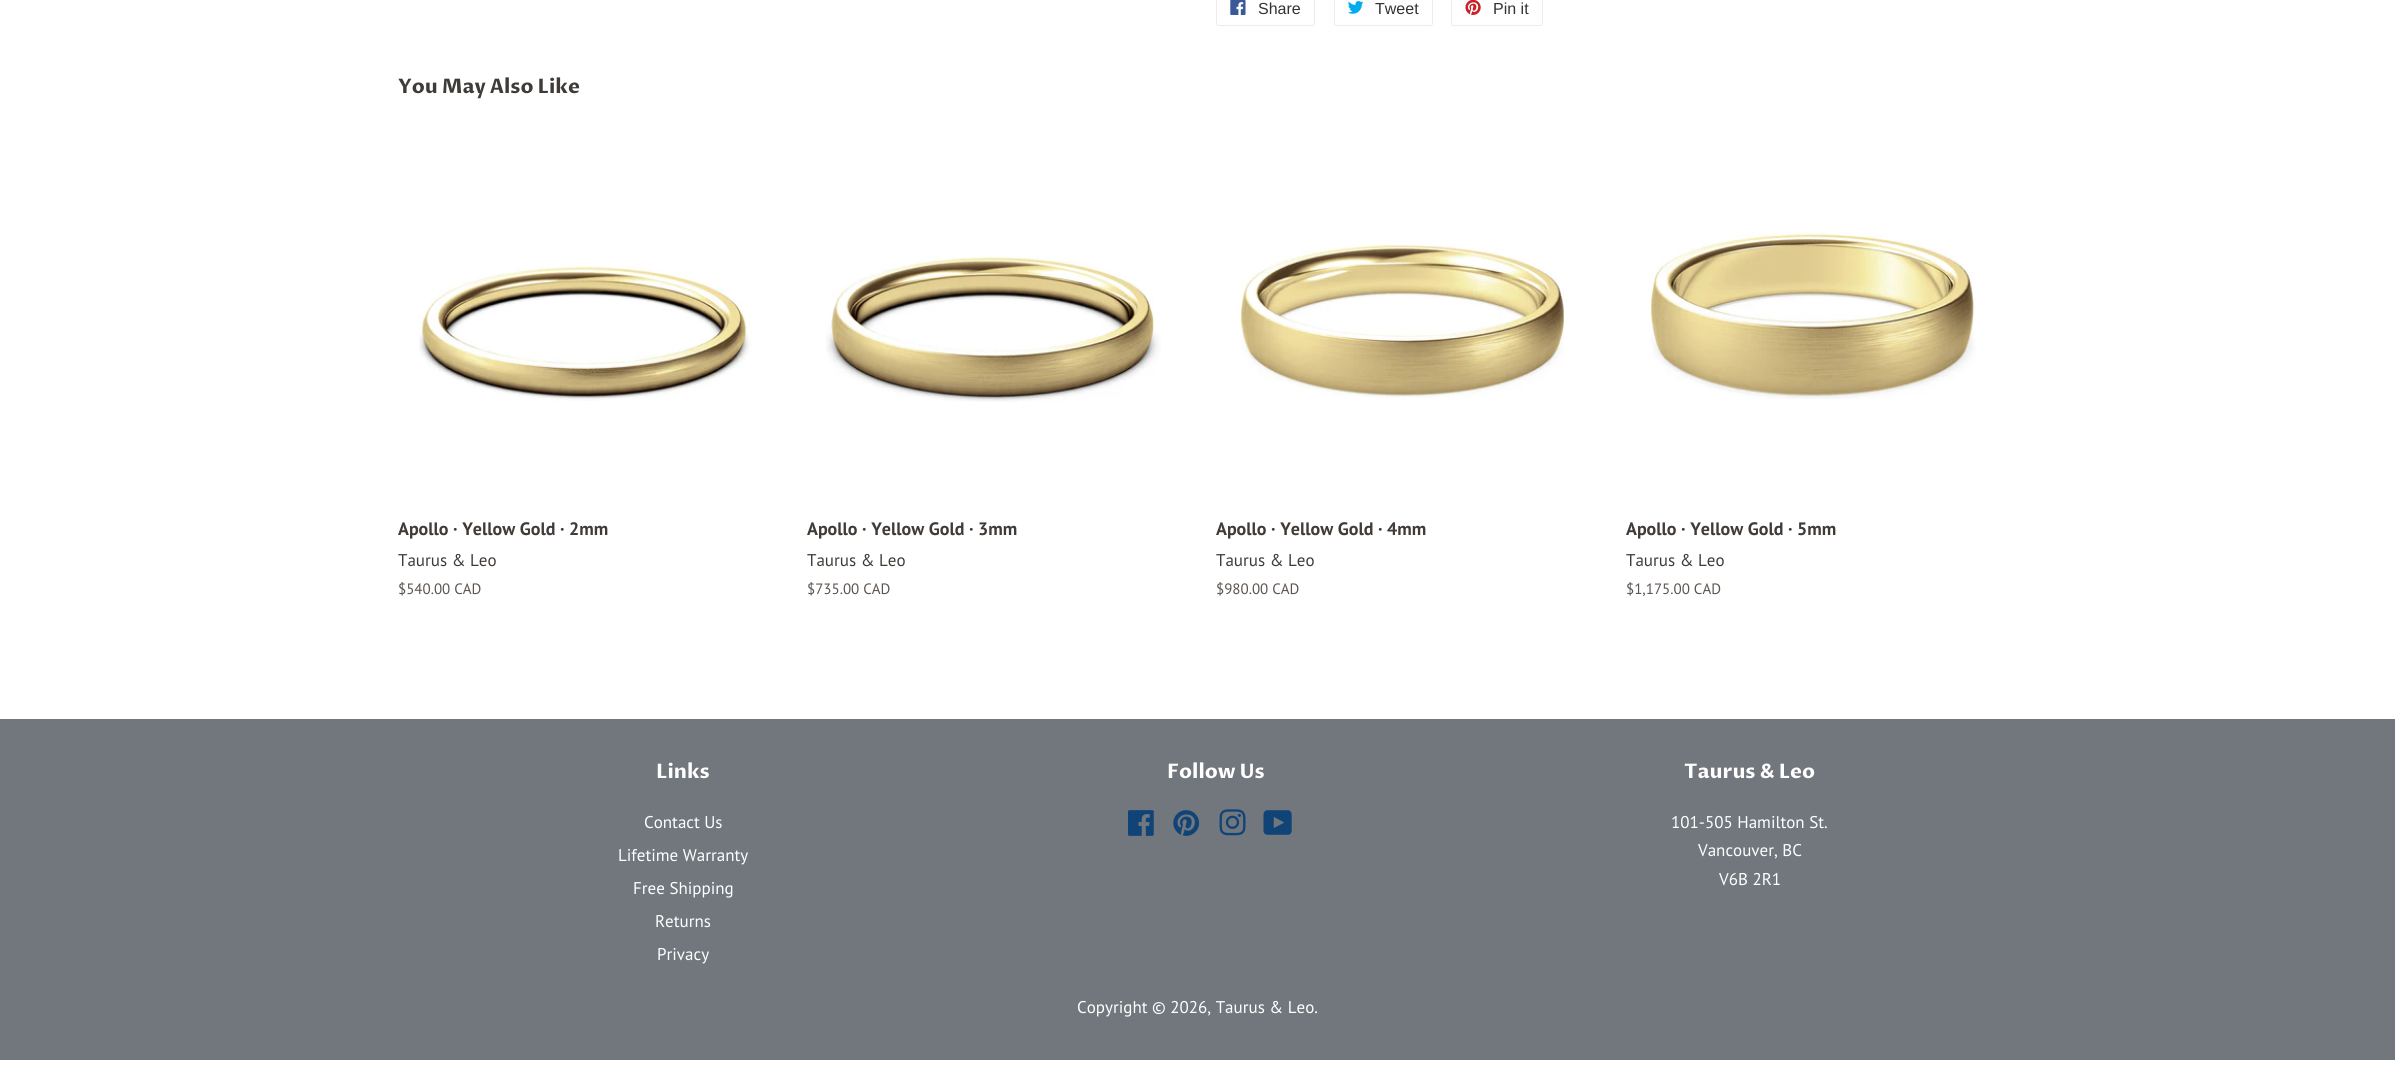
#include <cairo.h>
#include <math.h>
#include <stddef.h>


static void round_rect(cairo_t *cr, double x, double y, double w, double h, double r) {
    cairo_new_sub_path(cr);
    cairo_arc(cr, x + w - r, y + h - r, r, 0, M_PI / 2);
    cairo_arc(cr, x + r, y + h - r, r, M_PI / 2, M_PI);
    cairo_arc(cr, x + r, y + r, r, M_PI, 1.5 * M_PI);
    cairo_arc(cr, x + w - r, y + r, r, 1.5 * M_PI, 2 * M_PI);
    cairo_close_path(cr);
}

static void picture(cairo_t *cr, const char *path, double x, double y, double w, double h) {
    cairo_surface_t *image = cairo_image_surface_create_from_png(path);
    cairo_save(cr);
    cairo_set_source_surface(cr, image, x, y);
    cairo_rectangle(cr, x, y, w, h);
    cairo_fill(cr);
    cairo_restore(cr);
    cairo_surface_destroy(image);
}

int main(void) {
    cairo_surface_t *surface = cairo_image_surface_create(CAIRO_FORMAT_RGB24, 2395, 1082);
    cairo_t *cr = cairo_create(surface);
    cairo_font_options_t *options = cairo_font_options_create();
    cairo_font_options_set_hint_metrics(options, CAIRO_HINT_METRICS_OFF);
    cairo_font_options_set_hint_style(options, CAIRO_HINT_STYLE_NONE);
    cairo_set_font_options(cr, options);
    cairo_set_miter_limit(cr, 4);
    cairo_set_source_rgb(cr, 1, 1, 1);
    cairo_paint(cr);
    round_rect(cr, 1216.5, -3.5, 98, 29, 2);
    cairo_set_source_rgb(cr, 0.925, 0.925, 0.925);
    cairo_set_line_width(cr, 1);
    cairo_stroke(cr);
    picture(cr, "img1.png", 1230, 0, 16, 15);
    cairo_select_font_face(cr, "Liberation Sans", CAIRO_FONT_SLANT_NORMAL, CAIRO_FONT_WEIGHT_NORMAL);
    cairo_set_font_size(cr, 16);
    cairo_set_source_rgb(cr, 0.2, 0.2, 0.2);
    cairo_move_to(cr, 1258, 14);
    cairo_show_text(cr, "Share");
    round_rect(cr, 1334.5, -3.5, 98, 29, 2);
    cairo_set_source_rgb(cr, 0.925, 0.925, 0.925);
    cairo_stroke(cr);
    picture(cr, "img2.png", 1348, 1, 16, 13);
    cairo_set_source_rgb(cr, 0.2, 0.2, 0.2);
    cairo_move_to(cr, 1375, 14);
    cairo_show_text(cr, "Tweet");
    round_rect(cr, 1451.5, -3.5, 91, 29, 2);
    cairo_set_source_rgb(cr, 0.925, 0.925, 0.925);
    cairo_stroke(cr);
    picture(cr, "img3.png", 1465, 0, 16, 15);
    cairo_set_source_rgb(cr, 0.2, 0.2, 0.2);
    cairo_move_to(cr, 1493, 14);
    cairo_show_text(cr, "Pin it");
    cairo_select_font_face(cr, "Proza Libre", CAIRO_FONT_SLANT_NORMAL, CAIRO_FONT_WEIGHT_BOLD);
    cairo_set_font_size(cr, 20);
    cairo_set_source_rgb(cr, 0.251, 0.231, 0.216);
    cairo_move_to(cr, 398, 93);
    cairo_show_text(cr, "You May Also Like");
    picture(cr, "img4.png", 419, 266, 333, 135);
    cairo_select_font_face(cr, "PT Sans", CAIRO_FONT_SLANT_NORMAL, CAIRO_FONT_WEIGHT_BOLD);
    cairo_set_font_size(cr, 18);
    cairo_move_to(cr, 398, 535);
    cairo_show_text(cr, "Apollo · Yellow Gold · 2mm");
    cairo_select_font_face(cr, "PT Sans", CAIRO_FONT_SLANT_NORMAL, CAIRO_FONT_WEIGHT_NORMAL);
    cairo_set_font_size(cr, 17);
    cairo_move_to(cr, 398, 566);
    cairo_show_text(cr, "Taurus & Leo");
    cairo_set_font_size(cr, 15);
    cairo_set_source_rgb(cr, 0.357, 0.329, 0.31);
    cairo_move_to(cr, 398, 594);
    cairo_show_text(cr, "$540.00 CAD");
    picture(cr, "img5.png", 826, 256, 335, 146);
    cairo_select_font_face(cr, "PT Sans", CAIRO_FONT_SLANT_NORMAL, CAIRO_FONT_WEIGHT_BOLD);
    cairo_set_font_size(cr, 18);
    cairo_set_source_rgb(cr, 0.251, 0.231, 0.216);
    cairo_move_to(cr, 807, 535);
    cairo_show_text(cr, "Apollo · Yellow Gold · 3mm");
    cairo_select_font_face(cr, "PT Sans", CAIRO_FONT_SLANT_NORMAL, CAIRO_FONT_WEIGHT_NORMAL);
    cairo_set_font_size(cr, 17);
    cairo_move_to(cr, 807, 566);
    cairo_show_text(cr, "Taurus & Leo");
    cairo_set_font_size(cr, 15);
    cairo_set_source_rgb(cr, 0.357, 0.329, 0.31);
    cairo_move_to(cr, 807, 594);
    cairo_show_text(cr, "$735.00 CAD");
    picture(cr, "img6.png", 1240, 244, 325, 154);
    cairo_select_font_face(cr, "PT Sans", CAIRO_FONT_SLANT_NORMAL, CAIRO_FONT_WEIGHT_BOLD);
    cairo_set_font_size(cr, 18);
    cairo_set_source_rgb(cr, 0.251, 0.231, 0.216);
    cairo_move_to(cr, 1216, 535);
    cairo_show_text(cr, "Apollo · Yellow Gold · 4mm");
    cairo_select_font_face(cr, "PT Sans", CAIRO_FONT_SLANT_NORMAL, CAIRO_FONT_WEIGHT_NORMAL);
    cairo_set_font_size(cr, 17);
    cairo_move_to(cr, 1216, 566);
    cairo_show_text(cr, "Taurus & Leo");
    cairo_set_font_size(cr, 15);
    cairo_set_source_rgb(cr, 0.357, 0.329, 0.31);
    cairo_move_to(cr, 1216, 594);
    cairo_show_text(cr, "$980.00 CAD");
    picture(cr, "img7.png", 1650, 232, 326, 167);
    cairo_select_font_face(cr, "PT Sans", CAIRO_FONT_SLANT_NORMAL, CAIRO_FONT_WEIGHT_BOLD);
    cairo_set_font_size(cr, 18);
    cairo_set_source_rgb(cr, 0.251, 0.231, 0.216);
    cairo_move_to(cr, 1626, 535);
    cairo_show_text(cr, "Apollo · Yellow Gold · 5mm");
    cairo_select_font_face(cr, "PT Sans", CAIRO_FONT_SLANT_NORMAL, CAIRO_FONT_WEIGHT_NORMAL);
    cairo_set_font_size(cr, 17);
    cairo_move_to(cr, 1626, 566);
    cairo_show_text(cr, "Taurus & Leo");
    cairo_set_font_size(cr, 15);
    cairo_set_source_rgb(cr, 0.357, 0.329, 0.31);
    cairo_move_to(cr, 1626, 594);
    cairo_show_text(cr, "$1,175.00 CAD");
    cairo_set_source_rgb(cr, 0.443, 0.467, 0.49);
    cairo_rectangle(cr, 0, 719, 2395, 341);
    cairo_fill(cr);
    cairo_select_font_face(cr, "Proza Libre", CAIRO_FONT_SLANT_NORMAL, CAIRO_FONT_WEIGHT_BOLD);
    cairo_set_font_size(cr, 20);
    cairo_set_source_rgb(cr, 1, 1, 1);
    cairo_move_to(cr, 656, 778);
    cairo_show_text(cr, "Links");
    cairo_select_font_face(cr, "PT Sans", CAIRO_FONT_SLANT_NORMAL, CAIRO_FONT_WEIGHT_NORMAL);
    cairo_set_font_size(cr, 17);
    cairo_move_to(cr, 644, 828);
    cairo_show_text(cr, "Contact Us");
    cairo_move_to(cr, 618, 861);
    cairo_show_text(cr, "Lifetime Warranty");
    cairo_move_to(cr, 633, 894);
    cairo_show_text(cr, "Free Shipping");
    cairo_move_to(cr, 655, 927);
    cairo_show_text(cr, "Returns");
    cairo_move_to(cr, 657, 960);
    cairo_show_text(cr, "Privacy");
    cairo_select_font_face(cr, "Proza Libre", CAIRO_FONT_SLANT_NORMAL, CAIRO_FONT_WEIGHT_BOLD);
    cairo_set_font_size(cr, 20);
    cairo_move_to(cr, 1167, 778);
    cairo_show_text(cr, "Follow Us");
    picture(cr, "img8.png", 1128, 810, 26, 26);
    picture(cr, "img9.png", 1173, 810, 27, 26);
    picture(cr, "img10.png", 1219, 809, 27, 27);
    picture(cr, "img11.png", 1263, 810, 29, 25);
    cairo_move_to(cr, 1684, 778);
    cairo_show_text(cr, "Taurus & Leo");
    cairo_select_font_face(cr, "PT Sans", CAIRO_FONT_SLANT_NORMAL, CAIRO_FONT_WEIGHT_NORMAL);
    cairo_set_font_size(cr, 17);
    cairo_move_to(cr, 1671, 828);
    cairo_show_text(cr, "101-505 Hamilton St.");
    cairo_move_to(cr, 1698, 856);
    cairo_show_text(cr, "Vancouver, BC");
    cairo_move_to(cr, 1719, 885);
    cairo_show_text(cr, "V6B 2R1");
    cairo_move_to(cr, 1077, 1013);
    cairo_show_text(cr, "Copyright © 2026, Taurus & Leo.");
    cairo_surface_write_to_png(surface, "page.png");
    cairo_font_options_destroy(options);
    cairo_destroy(cr);
    cairo_surface_destroy(surface);
    return 0;
}
